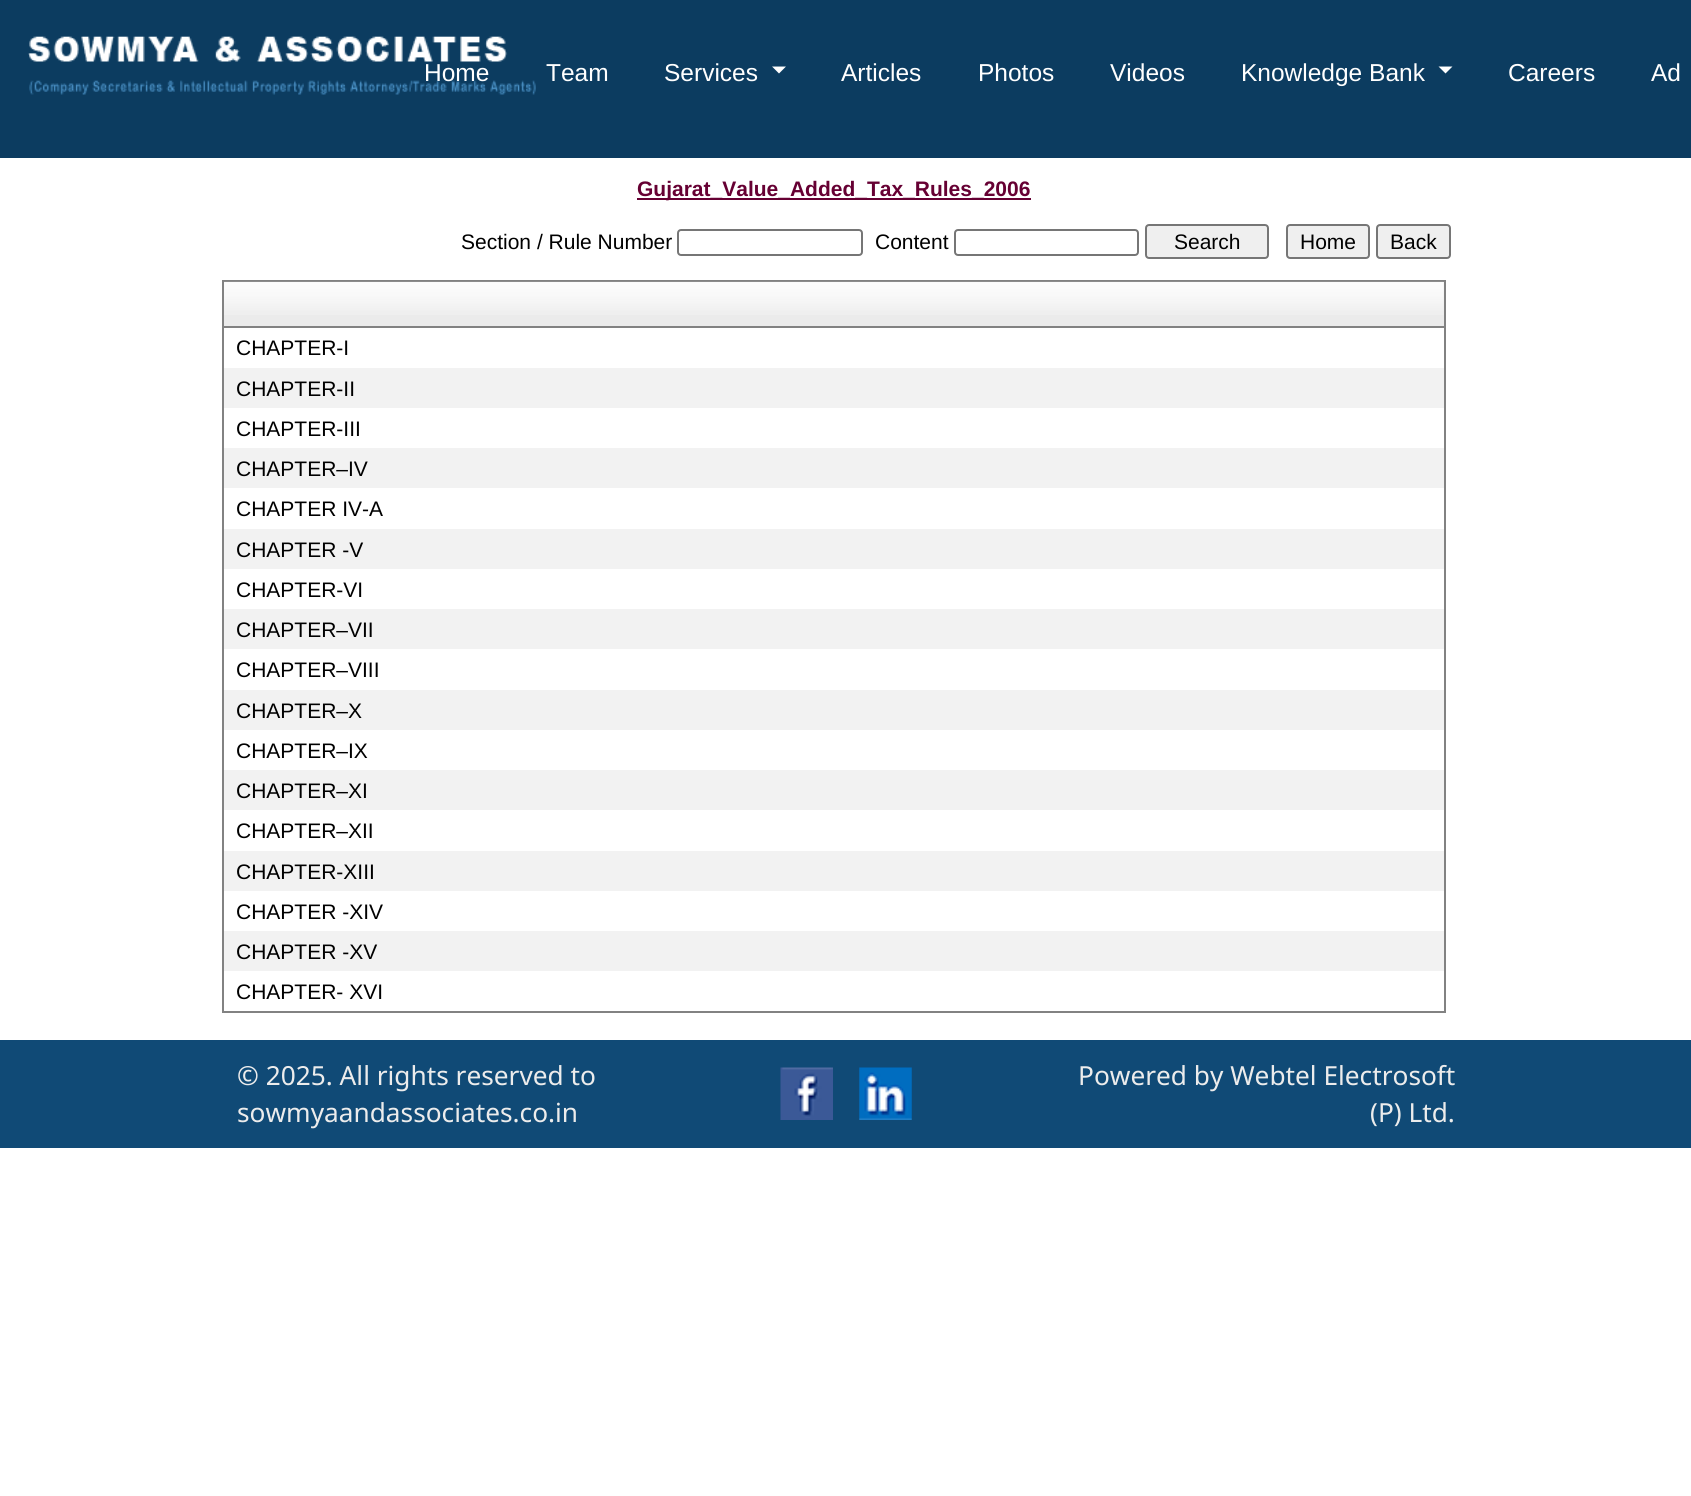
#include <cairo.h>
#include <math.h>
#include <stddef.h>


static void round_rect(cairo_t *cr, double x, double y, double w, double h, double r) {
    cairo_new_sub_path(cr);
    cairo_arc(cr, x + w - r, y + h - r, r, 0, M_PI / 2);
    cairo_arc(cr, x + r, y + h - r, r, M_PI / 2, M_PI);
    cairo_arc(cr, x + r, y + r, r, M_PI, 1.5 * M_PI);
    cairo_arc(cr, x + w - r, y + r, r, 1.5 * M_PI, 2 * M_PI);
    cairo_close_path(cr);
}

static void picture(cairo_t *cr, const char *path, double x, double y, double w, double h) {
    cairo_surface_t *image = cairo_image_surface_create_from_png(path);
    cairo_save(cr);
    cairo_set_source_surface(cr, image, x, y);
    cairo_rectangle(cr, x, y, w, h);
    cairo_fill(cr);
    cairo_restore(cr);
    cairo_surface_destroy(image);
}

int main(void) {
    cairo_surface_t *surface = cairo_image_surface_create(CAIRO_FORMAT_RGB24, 1691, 1496);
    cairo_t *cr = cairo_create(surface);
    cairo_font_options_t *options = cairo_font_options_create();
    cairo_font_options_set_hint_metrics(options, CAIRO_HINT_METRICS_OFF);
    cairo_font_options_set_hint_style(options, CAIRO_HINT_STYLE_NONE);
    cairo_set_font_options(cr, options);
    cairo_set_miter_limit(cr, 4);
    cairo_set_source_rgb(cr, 1, 1, 1);
    cairo_paint(cr);
    cairo_set_source_rgb(cr, 0.047, 0.235, 0.376);
    cairo_rectangle(cr, 0, 0, 1691, 158);
    cairo_fill(cr);
    picture(cr, "img1.png", 28, 36, 508, 59);
    cairo_select_font_face(cr, "Liberation Sans", CAIRO_FONT_SLANT_NORMAL, CAIRO_FONT_WEIGHT_NORMAL);
    cairo_set_font_size(cr, 24.5);
    cairo_set_source_rgb(cr, 1, 1, 1);
    cairo_move_to(cr, 424, 81);
    cairo_show_text(cr, "Home");
    cairo_move_to(cr, 546, 81);
    cairo_show_text(cr, "Team");
    cairo_move_to(cr, 664, 81);
    cairo_show_text(cr, "Services");
    cairo_new_path(cr);
    cairo_move_to(cr, 772, 66.5);
    cairo_line_to(cr, 786, 66.5);
    cairo_line_to(cr, 779, 73.5);
    cairo_close_path(cr);
    cairo_fill(cr);
    cairo_move_to(cr, 841, 81);
    cairo_show_text(cr, "Articles");
    cairo_move_to(cr, 978, 81);
    cairo_show_text(cr, "Photos");
    cairo_move_to(cr, 1110, 81);
    cairo_show_text(cr, "Videos");
    cairo_move_to(cr, 1241, 81);
    cairo_show_text(cr, "Knowledge Bank");
    cairo_new_path(cr);
    cairo_move_to(cr, 1438.5, 66.5);
    cairo_line_to(cr, 1452.5, 66.5);
    cairo_line_to(cr, 1445.5, 73.5);
    cairo_close_path(cr);
    cairo_fill(cr);
    cairo_move_to(cr, 1508, 81);
    cairo_show_text(cr, "Careers");
    cairo_move_to(cr, 1651, 81);
    cairo_show_text(cr, "Ad");
    cairo_set_source_rgb(cr, 0.4, 0, 0.2);
    cairo_rectangle(cr, 637, 198, 394, 2);
    cairo_fill(cr);
    cairo_select_font_face(cr, "Liberation Sans", CAIRO_FONT_SLANT_NORMAL, CAIRO_FONT_WEIGHT_BOLD);
    cairo_set_font_size(cr, 21);
    cairo_move_to(cr, 637, 196);
    cairo_show_text(cr, "Gujarat_Value_Added_Tax_Rules_2006");
    cairo_select_font_face(cr, "Liberation Sans", CAIRO_FONT_SLANT_NORMAL, CAIRO_FONT_WEIGHT_NORMAL);
    cairo_set_source_rgb(cr, 0, 0, 0);
    cairo_move_to(cr, 461, 249);
    cairo_show_text(cr, "Section / Rule Number");
    round_rect(cr, 678, 230, 184, 25, 3);
    cairo_set_source_rgb(cr, 0.463, 0.463, 0.463);
    cairo_stroke(cr);
    cairo_set_source_rgb(cr, 0, 0, 0);
    cairo_move_to(cr, 875, 249);
    cairo_show_text(cr, "Content");
    round_rect(cr, 955, 230, 183, 25, 3);
    cairo_set_source_rgb(cr, 0.463, 0.463, 0.463);
    cairo_stroke(cr);
    cairo_set_source_rgb(cr, 0.937, 0.937, 0.937);
    round_rect(cr, 1146, 225, 122, 33, 3);
    cairo_fill_preserve(cr);
    cairo_set_source_rgb(cr, 0.463, 0.463, 0.463);
    cairo_stroke(cr);
    cairo_set_source_rgb(cr, 0, 0, 0);
    cairo_move_to(cr, 1174, 249);
    cairo_show_text(cr, "Search");
    cairo_set_source_rgb(cr, 0.937, 0.937, 0.937);
    round_rect(cr, 1287, 225, 82, 33, 3);
    cairo_fill_preserve(cr);
    cairo_set_source_rgb(cr, 0.463, 0.463, 0.463);
    cairo_stroke(cr);
    cairo_set_source_rgb(cr, 0, 0, 0);
    cairo_move_to(cr, 1300, 249);
    cairo_show_text(cr, "Home");
    cairo_set_source_rgb(cr, 0.937, 0.937, 0.937);
    round_rect(cr, 1377, 225, 73, 33, 3);
    cairo_fill_preserve(cr);
    cairo_set_source_rgb(cr, 0.463, 0.463, 0.463);
    cairo_stroke(cr);
    cairo_set_source_rgb(cr, 0, 0, 0);
    cairo_move_to(cr, 1390, 249);
    cairo_show_text(cr, "Back");
    cairo_rectangle(cr, 223, 281, 1222, 731);
    cairo_set_source_rgb(cr, 0.51, 0.51, 0.51);
    cairo_stroke(cr);
    cairo_set_source_rgb(cr, 0.918, 0.918, 0.918);
    cairo_rectangle(cr, 224, 282, 1220, 44);
    cairo_fill(cr);
    picture(cr, "img2.png", 224, 281, 1220, 34);
    cairo_set_source_rgb(cr, 0.51, 0.51, 0.51);
    cairo_rectangle(cr, 224, 326, 1220, 2);
    cairo_fill(cr);
    cairo_set_source_rgb(cr, 0, 0, 0);
    cairo_move_to(cr, 236, 355);
    cairo_show_text(cr, "CHAPTER-I");
    cairo_set_source_rgb(cr, 0.949, 0.949, 0.949);
    cairo_rectangle(cr, 224, 368, 1220, 40);
    cairo_fill(cr);
    cairo_set_source_rgb(cr, 0, 0, 0);
    cairo_move_to(cr, 236, 396);
    cairo_show_text(cr, "CHAPTER-II");
    cairo_move_to(cr, 236, 436);
    cairo_show_text(cr, "CHAPTER-III");
    cairo_set_source_rgb(cr, 0.949, 0.949, 0.949);
    cairo_rectangle(cr, 224, 448, 1220, 40);
    cairo_fill(cr);
    cairo_set_source_rgb(cr, 0, 0, 0);
    cairo_move_to(cr, 236, 476);
    cairo_show_text(cr, "CHAPTER–IV");
    cairo_move_to(cr, 236, 516);
    cairo_show_text(cr, "CHAPTER IV-A");
    cairo_set_source_rgb(cr, 0.949, 0.949, 0.949);
    cairo_rectangle(cr, 224, 529, 1220, 40);
    cairo_fill(cr);
    cairo_set_source_rgb(cr, 0, 0, 0);
    cairo_move_to(cr, 236, 557);
    cairo_show_text(cr, "CHAPTER -V");
    cairo_move_to(cr, 236, 597);
    cairo_show_text(cr, "CHAPTER-VI");
    cairo_set_source_rgb(cr, 0.949, 0.949, 0.949);
    cairo_rectangle(cr, 224, 609, 1220, 40);
    cairo_fill(cr);
    cairo_set_source_rgb(cr, 0, 0, 0);
    cairo_move_to(cr, 236, 637);
    cairo_show_text(cr, "CHAPTER–VII");
    cairo_move_to(cr, 236, 677);
    cairo_show_text(cr, "CHAPTER–VIII");
    cairo_set_source_rgb(cr, 0.949, 0.949, 0.949);
    cairo_rectangle(cr, 224, 690, 1220, 40);
    cairo_fill(cr);
    cairo_set_source_rgb(cr, 0, 0, 0);
    cairo_move_to(cr, 236, 718);
    cairo_show_text(cr, "CHAPTER–X");
    cairo_move_to(cr, 236, 758);
    cairo_show_text(cr, "CHAPTER–IX");
    cairo_set_source_rgb(cr, 0.949, 0.949, 0.949);
    cairo_rectangle(cr, 224, 770, 1220, 40);
    cairo_fill(cr);
    cairo_set_source_rgb(cr, 0, 0, 0);
    cairo_move_to(cr, 236, 798);
    cairo_show_text(cr, "CHAPTER–XI");
    cairo_move_to(cr, 236, 838);
    cairo_show_text(cr, "CHAPTER–XII");
    cairo_set_source_rgb(cr, 0.949, 0.949, 0.949);
    cairo_rectangle(cr, 224, 851, 1220, 40);
    cairo_fill(cr);
    cairo_set_source_rgb(cr, 0, 0, 0);
    cairo_move_to(cr, 236, 879);
    cairo_show_text(cr, "CHAPTER-XIII");
    cairo_move_to(cr, 236, 919);
    cairo_show_text(cr, "CHAPTER -XIV");
    cairo_set_source_rgb(cr, 0.949, 0.949, 0.949);
    cairo_rectangle(cr, 224, 931, 1220, 40);
    cairo_fill(cr);
    cairo_set_source_rgb(cr, 0, 0, 0);
    cairo_move_to(cr, 236, 959);
    cairo_show_text(cr, "CHAPTER -XV");
    cairo_move_to(cr, 236, 999);
    cairo_show_text(cr, "CHAPTER- XVI");
    cairo_set_source_rgb(cr, 0.063, 0.29, 0.463);
    cairo_rectangle(cr, 0, 1040, 1691, 108);
    cairo_fill(cr);
    cairo_select_font_face(cr, "Noto Sans", CAIRO_FONT_SLANT_NORMAL, CAIRO_FONT_WEIGHT_NORMAL);
    cairo_set_font_size(cr, 26.25);
    cairo_set_source_rgb(cr, 0.922, 0.922, 0.922);
    cairo_move_to(cr, 237, 1085);
    cairo_show_text(cr, "© 2025. All rights reserved to");
    cairo_move_to(cr, 237, 1122);
    cairo_show_text(cr, "sowmyaandassociates.co.in");
    picture(cr, "img3.png", 780, 1067, 53, 53);
    picture(cr, "img4.png", 859, 1067, 53, 53);
    cairo_move_to(cr, 1078, 1085);
    cairo_show_text(cr, "Powered by Webtel Electrosoft");
    cairo_move_to(cr, 1370, 1122);
    cairo_show_text(cr, "(P) Ltd.");
    cairo_surface_write_to_png(surface, "page.png");
    cairo_font_options_destroy(options);
    cairo_destroy(cr);
    cairo_surface_destroy(surface);
    return 0;
}
